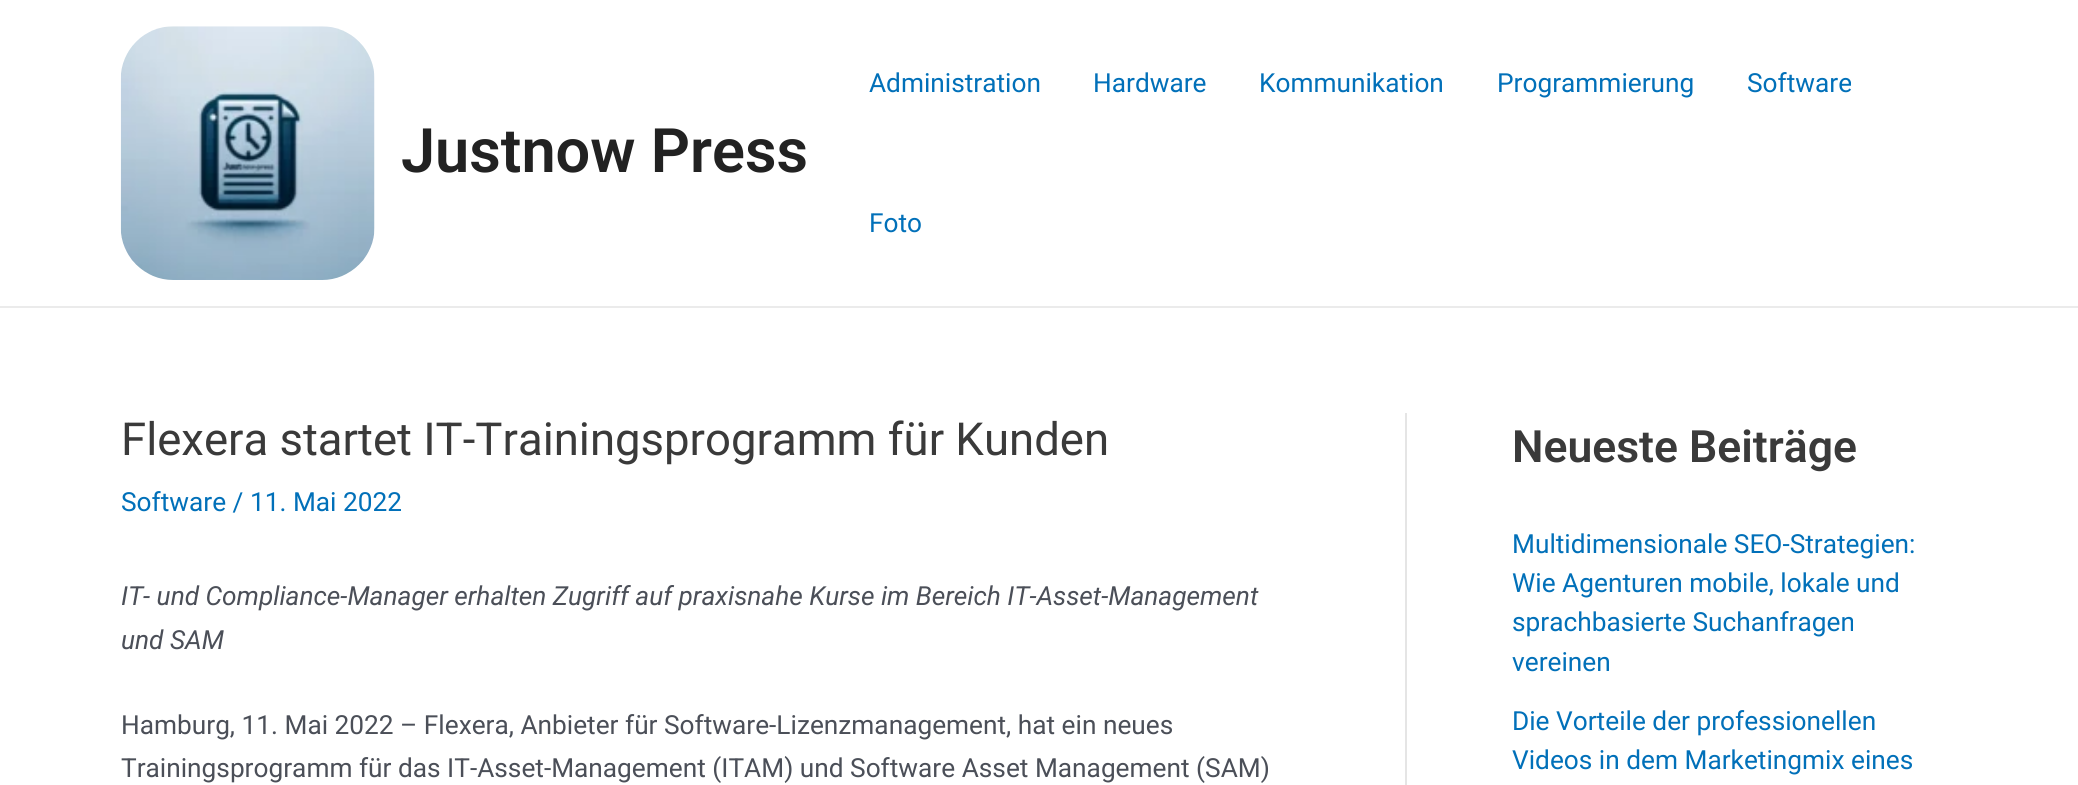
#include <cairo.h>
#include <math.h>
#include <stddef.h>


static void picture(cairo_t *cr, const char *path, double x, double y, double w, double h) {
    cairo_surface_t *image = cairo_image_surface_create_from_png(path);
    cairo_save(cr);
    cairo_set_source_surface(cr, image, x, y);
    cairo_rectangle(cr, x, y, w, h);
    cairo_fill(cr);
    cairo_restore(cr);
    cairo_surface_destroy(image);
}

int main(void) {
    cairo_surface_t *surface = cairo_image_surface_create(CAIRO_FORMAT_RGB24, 2078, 785);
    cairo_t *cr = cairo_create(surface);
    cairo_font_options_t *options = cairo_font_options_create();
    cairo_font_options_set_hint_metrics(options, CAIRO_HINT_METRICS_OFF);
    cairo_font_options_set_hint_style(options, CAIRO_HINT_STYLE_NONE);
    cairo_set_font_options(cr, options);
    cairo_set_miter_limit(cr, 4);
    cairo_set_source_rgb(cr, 1, 1, 1);
    cairo_paint(cr);
    cairo_set_source_rgb(cr, 0.918, 0.918, 0.918);
    cairo_rectangle(cr, 0, 306, 2078, 2);
    cairo_fill(cr);
    picture(cr, "img1.png", 120, 26, 255, 254);
    cairo_select_font_face(cr, "Roboto SemiBold", CAIRO_FONT_SLANT_NORMAL, CAIRO_FONT_WEIGHT_NORMAL);
    cairo_set_font_size(cr, 61.25);
    cairo_set_source_rgb(cr, 0.133, 0.133, 0.133);
    cairo_move_to(cr, 401, 172);
    cairo_show_text(cr, "Justnow Press");
    cairo_select_font_face(cr, "Roboto", CAIRO_FONT_SLANT_NORMAL, CAIRO_FONT_WEIGHT_NORMAL);
    cairo_set_font_size(cr, 26.25);
    cairo_set_source_rgb(cr, 0.004, 0.439, 0.725);
    cairo_move_to(cr, 869, 92);
    cairo_show_text(cr, "Administration");
    cairo_move_to(cr, 1093, 92);
    cairo_show_text(cr, "Hardware");
    cairo_move_to(cr, 1259, 92);
    cairo_show_text(cr, "Kommunikation");
    cairo_move_to(cr, 1497, 92);
    cairo_show_text(cr, "Programmierung");
    cairo_move_to(cr, 1747, 92);
    cairo_show_text(cr, "Software");
    cairo_move_to(cr, 869, 232);
    cairo_show_text(cr, "Foto");
    cairo_set_source_rgb(cr, 0.898, 0.898, 0.898);
    cairo_rectangle(cr, 1405, 413, 2, 372);
    cairo_fill(cr);
    cairo_set_font_size(cr, 45.5);
    cairo_set_source_rgb(cr, 0.227, 0.227, 0.227);
    cairo_move_to(cr, 121, 455);
    cairo_show_text(cr, "Flexera startet IT-Trainingsprogramm für Kunden");
    cairo_set_font_size(cr, 26.25);
    cairo_set_source_rgb(cr, 0.004, 0.439, 0.725);
    cairo_move_to(cr, 121, 511);
    cairo_show_text(cr, "Software / 11. Mai 2022");
    cairo_select_font_face(cr, "Roboto", CAIRO_FONT_SLANT_ITALIC, CAIRO_FONT_WEIGHT_NORMAL);
    cairo_set_source_rgb(cr, 0.294, 0.31, 0.345);
    cairo_move_to(cr, 121, 605);
    cairo_show_text(cr, "IT- und Compliance-Manager erhalten Zugriff auf praxisnahe Kurse im Bereich IT-Asset-Management");
    cairo_move_to(cr, 121, 649);
    cairo_show_text(cr, "und SAM");
    cairo_select_font_face(cr, "Roboto", CAIRO_FONT_SLANT_NORMAL, CAIRO_FONT_WEIGHT_NORMAL);
    cairo_move_to(cr, 121, 734);
    cairo_show_text(cr, "Hamburg, 11. Mai 2022 – Flexera, Anbieter für Software-Lizenzmanagement, hat ein neues");
    cairo_move_to(cr, 121, 777);
    cairo_show_text(cr, "Trainingsprogramm für das IT-Asset-Management (ITAM) und Software Asset Management (SAM)");
    cairo_select_font_face(cr, "Roboto SemiBold", CAIRO_FONT_SLANT_NORMAL, CAIRO_FONT_WEIGHT_NORMAL);
    cairo_set_font_size(cr, 44.5);
    cairo_set_source_rgb(cr, 0.227, 0.227, 0.227);
    cairo_move_to(cr, 1512, 462);
    cairo_show_text(cr, "Neueste Beiträge");
    cairo_select_font_face(cr, "Roboto", CAIRO_FONT_SLANT_NORMAL, CAIRO_FONT_WEIGHT_NORMAL);
    cairo_set_font_size(cr, 26.25);
    cairo_set_source_rgb(cr, 0.004, 0.439, 0.725);
    cairo_move_to(cr, 1512, 553);
    cairo_show_text(cr, "Multidimensionale SEO-Strategien:");
    cairo_move_to(cr, 1512, 592);
    cairo_show_text(cr, "Wie Agenturen mobile, lokale und");
    cairo_move_to(cr, 1512, 631);
    cairo_show_text(cr, "sprachbasierte Suchanfragen");
    cairo_move_to(cr, 1512, 671);
    cairo_show_text(cr, "vereinen");
    cairo_move_to(cr, 1512, 730);
    cairo_show_text(cr, "Die Vorteile der professionellen");
    cairo_move_to(cr, 1512, 769);
    cairo_show_text(cr, "Videos in dem Marketingmix eines");
    cairo_surface_write_to_png(surface, "page.png");
    cairo_font_options_destroy(options);
    cairo_destroy(cr);
    cairo_surface_destroy(surface);
    return 0;
}
